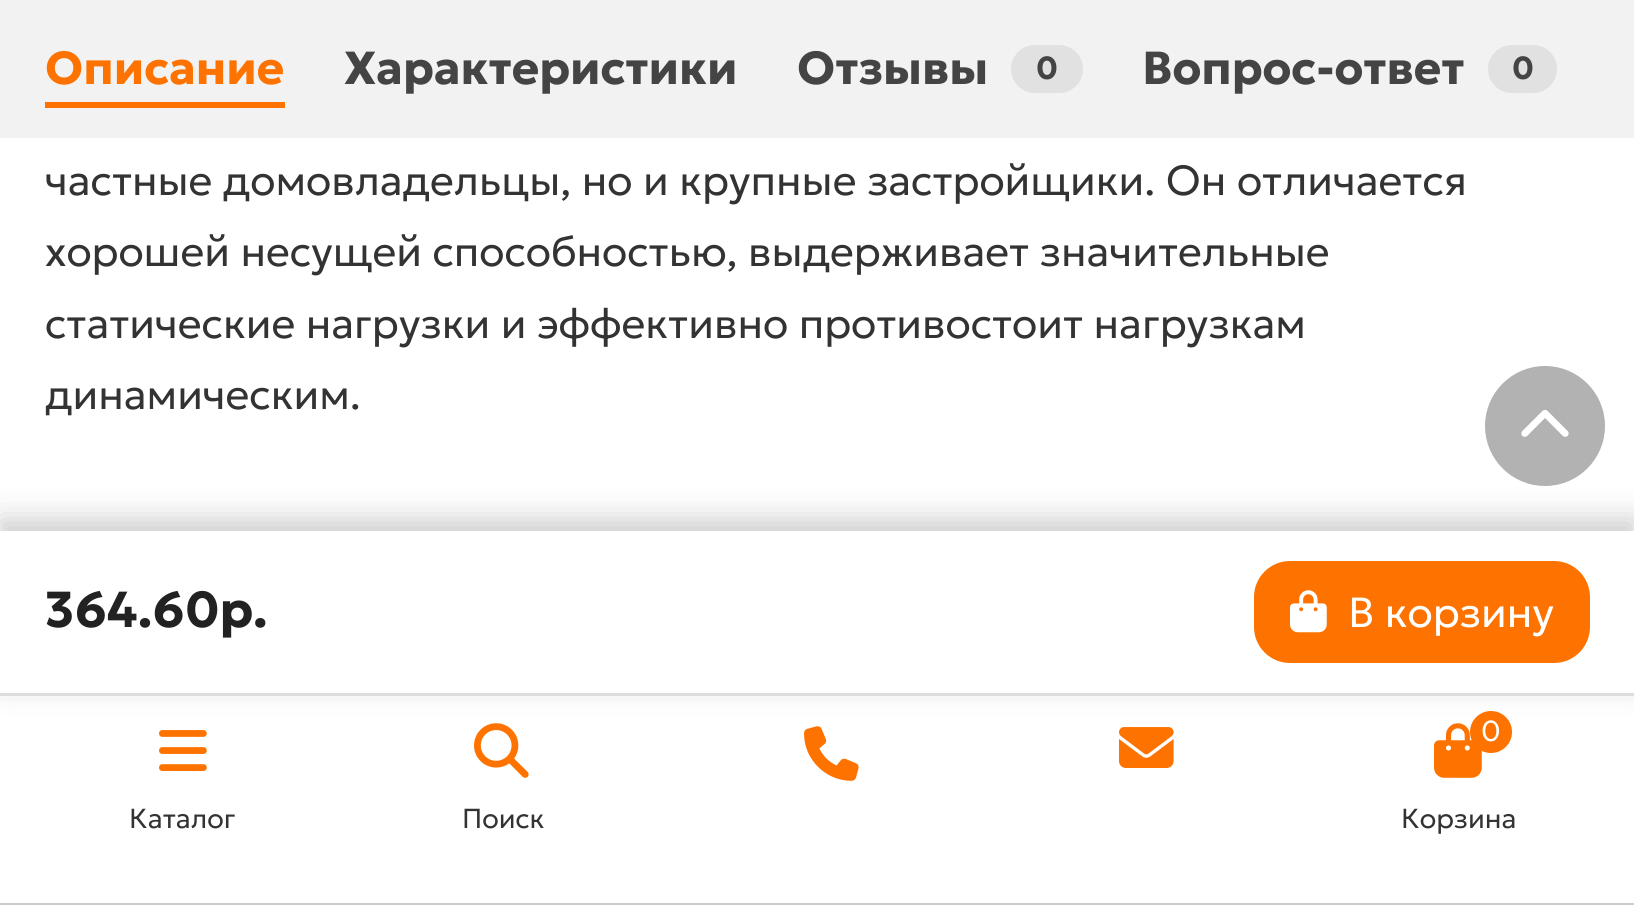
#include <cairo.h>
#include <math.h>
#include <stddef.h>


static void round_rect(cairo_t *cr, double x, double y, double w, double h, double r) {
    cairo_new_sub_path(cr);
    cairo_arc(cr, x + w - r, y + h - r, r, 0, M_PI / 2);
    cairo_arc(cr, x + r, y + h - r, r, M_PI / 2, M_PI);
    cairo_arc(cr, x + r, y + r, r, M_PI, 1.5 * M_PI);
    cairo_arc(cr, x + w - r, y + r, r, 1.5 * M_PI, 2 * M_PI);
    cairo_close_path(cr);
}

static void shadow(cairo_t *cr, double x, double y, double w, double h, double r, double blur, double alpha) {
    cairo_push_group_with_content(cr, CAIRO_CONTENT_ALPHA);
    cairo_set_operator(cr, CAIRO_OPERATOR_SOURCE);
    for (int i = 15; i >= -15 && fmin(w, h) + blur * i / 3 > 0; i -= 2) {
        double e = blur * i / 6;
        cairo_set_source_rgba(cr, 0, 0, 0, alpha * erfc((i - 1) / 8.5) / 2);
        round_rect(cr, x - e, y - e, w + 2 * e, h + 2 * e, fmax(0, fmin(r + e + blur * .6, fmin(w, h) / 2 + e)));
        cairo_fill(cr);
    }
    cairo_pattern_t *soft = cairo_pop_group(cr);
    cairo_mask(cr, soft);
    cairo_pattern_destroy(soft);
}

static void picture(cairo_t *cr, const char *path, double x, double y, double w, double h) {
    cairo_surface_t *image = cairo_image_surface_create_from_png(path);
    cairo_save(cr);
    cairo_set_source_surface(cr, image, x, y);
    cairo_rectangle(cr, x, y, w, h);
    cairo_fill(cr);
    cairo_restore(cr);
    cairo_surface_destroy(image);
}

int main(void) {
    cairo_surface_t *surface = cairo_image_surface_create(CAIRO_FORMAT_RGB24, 1634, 905);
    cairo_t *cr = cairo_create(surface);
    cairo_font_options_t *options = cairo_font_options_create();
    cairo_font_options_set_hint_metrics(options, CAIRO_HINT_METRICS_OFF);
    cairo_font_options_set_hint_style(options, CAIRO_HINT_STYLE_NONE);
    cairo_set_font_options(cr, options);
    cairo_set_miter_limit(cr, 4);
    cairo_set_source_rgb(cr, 1, 1, 1);
    cairo_paint(cr);
    cairo_set_source_rgb(cr, 0.949, 0.949, 0.949);
    cairo_rectangle(cr, 0, 0, 1634, 138);
    cairo_fill(cr);
    cairo_select_font_face(cr, "Geologica", CAIRO_FONT_SLANT_NORMAL, CAIRO_FONT_WEIGHT_BOLD);
    cairo_set_font_size(cr, 46.25);
    cairo_set_source_rgb(cr, 0.996, 0.447, 0);
    cairo_move_to(cr, 45, 84);
    cairo_show_text(cr, "Описание");
    cairo_rectangle(cr, 45, 102, 240, 6);
    cairo_fill(cr);
    cairo_set_source_rgb(cr, 0.267, 0.267, 0.267);
    cairo_move_to(cr, 344, 84);
    cairo_show_text(cr, "Характеристики");
    cairo_move_to(cr, 797, 84);
    cairo_show_text(cr, "Отзывы");
    cairo_set_source_rgb(cr, 0.882, 0.882, 0.882);
    round_rect(cr, 1011, 45, 72, 48, 24);
    cairo_fill(cr);
    cairo_set_font_size(cr, 32);
    cairo_set_source_rgb(cr, 0.267, 0.267, 0.267);
    cairo_move_to(cr, 1036, 79);
    cairo_show_text(cr, "0");
    cairo_set_font_size(cr, 46.25);
    cairo_move_to(cr, 1142, 84);
    cairo_show_text(cr, "Вопрос-ответ");
    cairo_set_source_rgb(cr, 0.882, 0.882, 0.882);
    round_rect(cr, 1488, 45, 69, 48, 24);
    cairo_fill(cr);
    cairo_set_font_size(cr, 32);
    cairo_set_source_rgb(cr, 0.267, 0.267, 0.267);
    cairo_move_to(cr, 1512, 79);
    cairo_show_text(cr, "0");
    cairo_select_font_face(cr, "Geologica Light", CAIRO_FONT_SLANT_NORMAL, CAIRO_FONT_WEIGHT_NORMAL);
    cairo_set_font_size(cr, 42);
    cairo_set_source_rgb(cr, 0.2, 0.2, 0.2);
    cairo_move_to(cr, 45, 195);
    cairo_show_text(cr, "частные домовладельцы, но и крупные застройщики. Он отличается");
    cairo_move_to(cr, 45, 266);
    cairo_show_text(cr, "хорошей несущей способностью, выдерживает значительные");
    cairo_move_to(cr, 45, 338);
    cairo_show_text(cr, "статические нагрузки и эффективно противостоит нагрузкам");
    cairo_move_to(cr, 45, 409);
    cairo_show_text(cr, "динамическим.");
    cairo_set_source_rgb(cr, 0, 0, 0);
    shadow(cr, 0, 519, 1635, 165, 0, 15, 0.2);
    cairo_set_source_rgb(cr, 0.698, 0.698, 0.698);
    cairo_arc(cr, 1545, 426, 60, 0, 2 * M_PI);
    cairo_fill(cr);
    picture(cr, "img1.png", 1521, 410, 48, 27);
    cairo_set_source_rgb(cr, 0.8, 0.8, 0.8);
    cairo_rectangle(cr, 0, 903, 1634, 2);
    cairo_fill(cr);
    cairo_set_source_rgb(cr, 1, 1, 1);
    cairo_rectangle(cr, 0, 531, 1634, 162);
    cairo_fill(cr);
    cairo_set_source_rgb(cr, 0.867, 0.867, 0.867);
    cairo_rectangle(cr, 0, 693, 1634, 3);
    cairo_fill(cr);
    cairo_select_font_face(cr, "Geologica", CAIRO_FONT_SLANT_NORMAL, CAIRO_FONT_WEIGHT_BOLD);
    cairo_set_font_size(cr, 50.5);
    cairo_set_source_rgb(cr, 0.133, 0.133, 0.133);
    cairo_move_to(cr, 45, 627);
    cairo_show_text(cr, "364.60р.");
    cairo_set_source_rgb(cr, 0.996, 0.447, 0);
    round_rect(cr, 1254, 561, 336, 102, 36);
    cairo_fill(cr);
    picture(cr, "img2.png", 1290, 590, 37, 43);
    cairo_select_font_face(cr, "Geologica Light", CAIRO_FONT_SLANT_NORMAL, CAIRO_FONT_WEIGHT_NORMAL);
    cairo_set_font_size(cr, 42);
    cairo_set_source_rgb(cr, 1, 1, 1);
    cairo_move_to(cr, 1348, 627);
    cairo_show_text(cr, "В корзину");
    picture(cr, "img3.png", 804, 726, 55, 55);
    picture(cr, "img4.png", 1119, 727, 55, 41);
    picture(cr, "img5.png", 1434, 723, 48, 55);
    cairo_set_source_rgb(cr, 0.996, 0.447, 0);
    cairo_arc(cr, 1491, 732, 21, 0, 2 * M_PI);
    cairo_fill(cr);
    cairo_set_font_size(cr, 29);
    cairo_set_source_rgb(cr, 1, 1, 1);
    cairo_move_to(cr, 1481, 741);
    cairo_show_text(cr, "0");
    cairo_set_font_size(cr, 27.5);
    cairo_set_source_rgb(cr, 0.2, 0.2, 0.2);
    cairo_move_to(cr, 1401, 828);
    cairo_show_text(cr, "Корзина");
    picture(cr, "img6.png", 159, 730, 48, 41);
    cairo_move_to(cr, 129, 828);
    cairo_show_text(cr, "Каталог");
    picture(cr, "img7.png", 474, 723, 55, 55);
    cairo_move_to(cr, 462, 828);
    cairo_show_text(cr, "Поиск");
    cairo_surface_write_to_png(surface, "page.png");
    cairo_font_options_destroy(options);
    cairo_destroy(cr);
    cairo_surface_destroy(surface);
    return 0;
}
